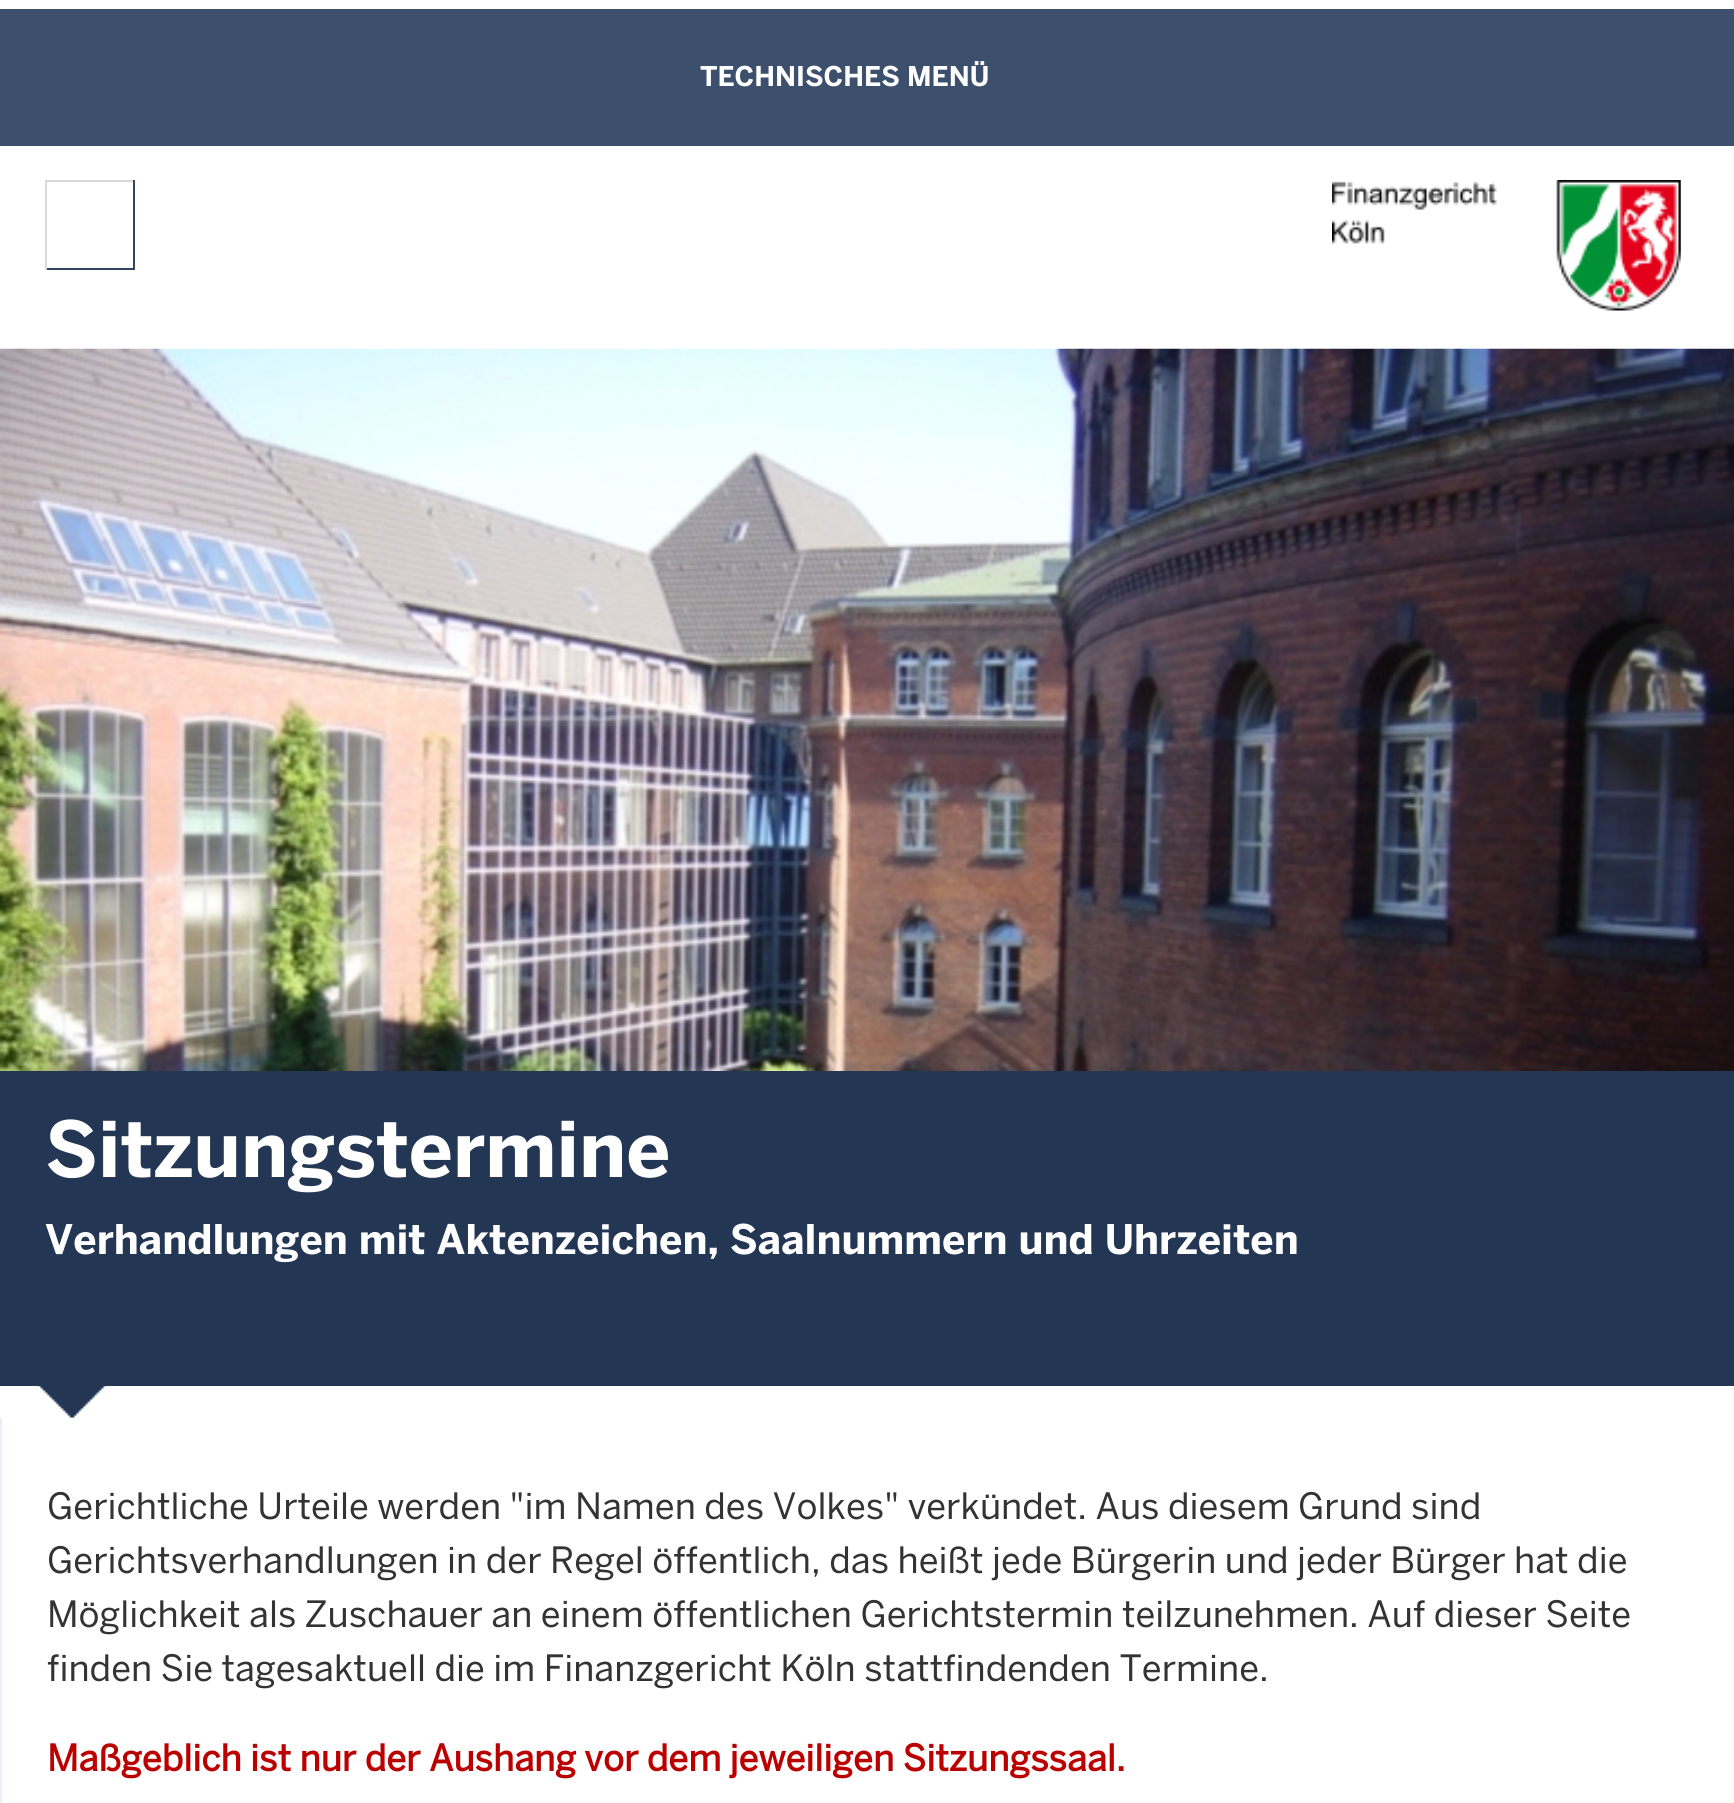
#include <cairo.h>
#include <math.h>
#include <stddef.h>


static void picture(cairo_t *cr, const char *path, double x, double y, double w, double h) {
    cairo_surface_t *image = cairo_image_surface_create_from_png(path);
    cairo_save(cr);
    cairo_set_source_surface(cr, image, x, y);
    cairo_rectangle(cr, x, y, w, h);
    cairo_fill(cr);
    cairo_restore(cr);
    cairo_surface_destroy(image);
}

int main(void) {
    cairo_surface_t *surface = cairo_image_surface_create(CAIRO_FORMAT_RGB24, 1734, 1803);
    cairo_t *cr = cairo_create(surface);
    cairo_font_options_t *options = cairo_font_options_create();
    cairo_font_options_set_hint_metrics(options, CAIRO_HINT_METRICS_OFF);
    cairo_font_options_set_hint_style(options, CAIRO_HINT_STYLE_NONE);
    cairo_set_font_options(cr, options);
    cairo_set_miter_limit(cr, 4);
    cairo_set_source_rgb(cr, 1, 1, 1);
    cairo_paint(cr);
    cairo_set_source_rgb(cr, 0.235, 0.314, 0.431);
    cairo_rectangle(cr, 0, 9, 1734, 137);
    cairo_fill(cr);
    cairo_select_font_face(cr, "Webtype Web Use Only", CAIRO_FONT_SLANT_NORMAL, CAIRO_FONT_WEIGHT_BOLD);
    cairo_set_font_size(cr, 27);
    cairo_set_source_rgb(cr, 1, 1, 1);
    cairo_move_to(cr, 700, 86);
    cairo_show_text(cr, "TECHNISCHES MENÜ");
    cairo_set_source_rgb(cr, 0.851, 0.851, 0.851);
    cairo_rectangle(cr, 45, 180, 90, 2);
    cairo_fill(cr);
    cairo_set_source_rgb(cr, 0.2, 0.267, 0.369);
    cairo_rectangle(cr, 133, 180, 2, 90);
    cairo_fill(cr);
    cairo_rectangle(cr, 45, 268, 90, 2);
    cairo_fill(cr);
    cairo_set_source_rgb(cr, 0.851, 0.851, 0.851);
    cairo_rectangle(cr, 45, 180, 2, 90);
    cairo_fill(cr);
    picture(cr, "img1.png", 1332, 180, 349, 131);
    picture(cr, "img2.png", 37, 1386, 69, 32);
    picture(cr, "img3.png", 0, 348, 1734, 723);
    cairo_set_source_rgb(cr, 0.137, 0.216, 0.333);
    cairo_rectangle(cr, 0, 1071, 1734, 315);
    cairo_fill(cr);
    cairo_set_font_size(cr, 76.5);
    cairo_set_source_rgb(cr, 1, 1, 1);
    cairo_move_to(cr, 45, 1177);
    cairo_show_text(cr, "Sitzungstermine");
    cairo_set_font_size(cr, 40.5);
    cairo_move_to(cr, 45, 1254);
    cairo_show_text(cr, "Verhandlungen mit Aktenzeichen, Saalnummern und Uhrzeiten");
    cairo_set_source_rgb(cr, 0.918, 0.937, 0.965);
    cairo_rectangle(cr, 0, 1418, 2, 385);
    cairo_fill(cr);
    cairo_select_font_face(cr, "Webtype Web Use Only", CAIRO_FONT_SLANT_NORMAL, CAIRO_FONT_WEIGHT_NORMAL);
    cairo_set_font_size(cr, 36);
    cairo_set_source_rgb(cr, 0.2, 0.2, 0.2);
    cairo_move_to(cr, 47, 1519);
    cairo_show_text(cr, "Gerichtliche Urteile werden \"im Namen des Volkes\" verkündet. Aus diesem Grund sind");
    cairo_move_to(cr, 47, 1573);
    cairo_show_text(cr, "Gerichtsverhandlungen in der Regel öffentlich, das heißt jede Bürgerin und jeder Bürger hat die");
    cairo_move_to(cr, 47, 1627);
    cairo_show_text(cr, "Möglichkeit als Zuschauer an einem öffentlichen Gerichtstermin teilzunehmen. Auf dieser Seite");
    cairo_move_to(cr, 47, 1681);
    cairo_show_text(cr, "finden Sie tagesaktuell die im Finanzgericht Köln stattfindenden Termine.");
    cairo_select_font_face(cr, "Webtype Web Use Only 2", CAIRO_FONT_SLANT_NORMAL, CAIRO_FONT_WEIGHT_BOLD);
    cairo_set_source_rgb(cr, 0.733, 0, 0);
    cairo_move_to(cr, 47, 1771);
    cairo_show_text(cr, "Maßgeblich ist nur der Aushang vor dem jeweiligen Sitzungssaal.");
    cairo_surface_write_to_png(surface, "page.png");
    cairo_font_options_destroy(options);
    cairo_destroy(cr);
    cairo_surface_destroy(surface);
    return 0;
}
